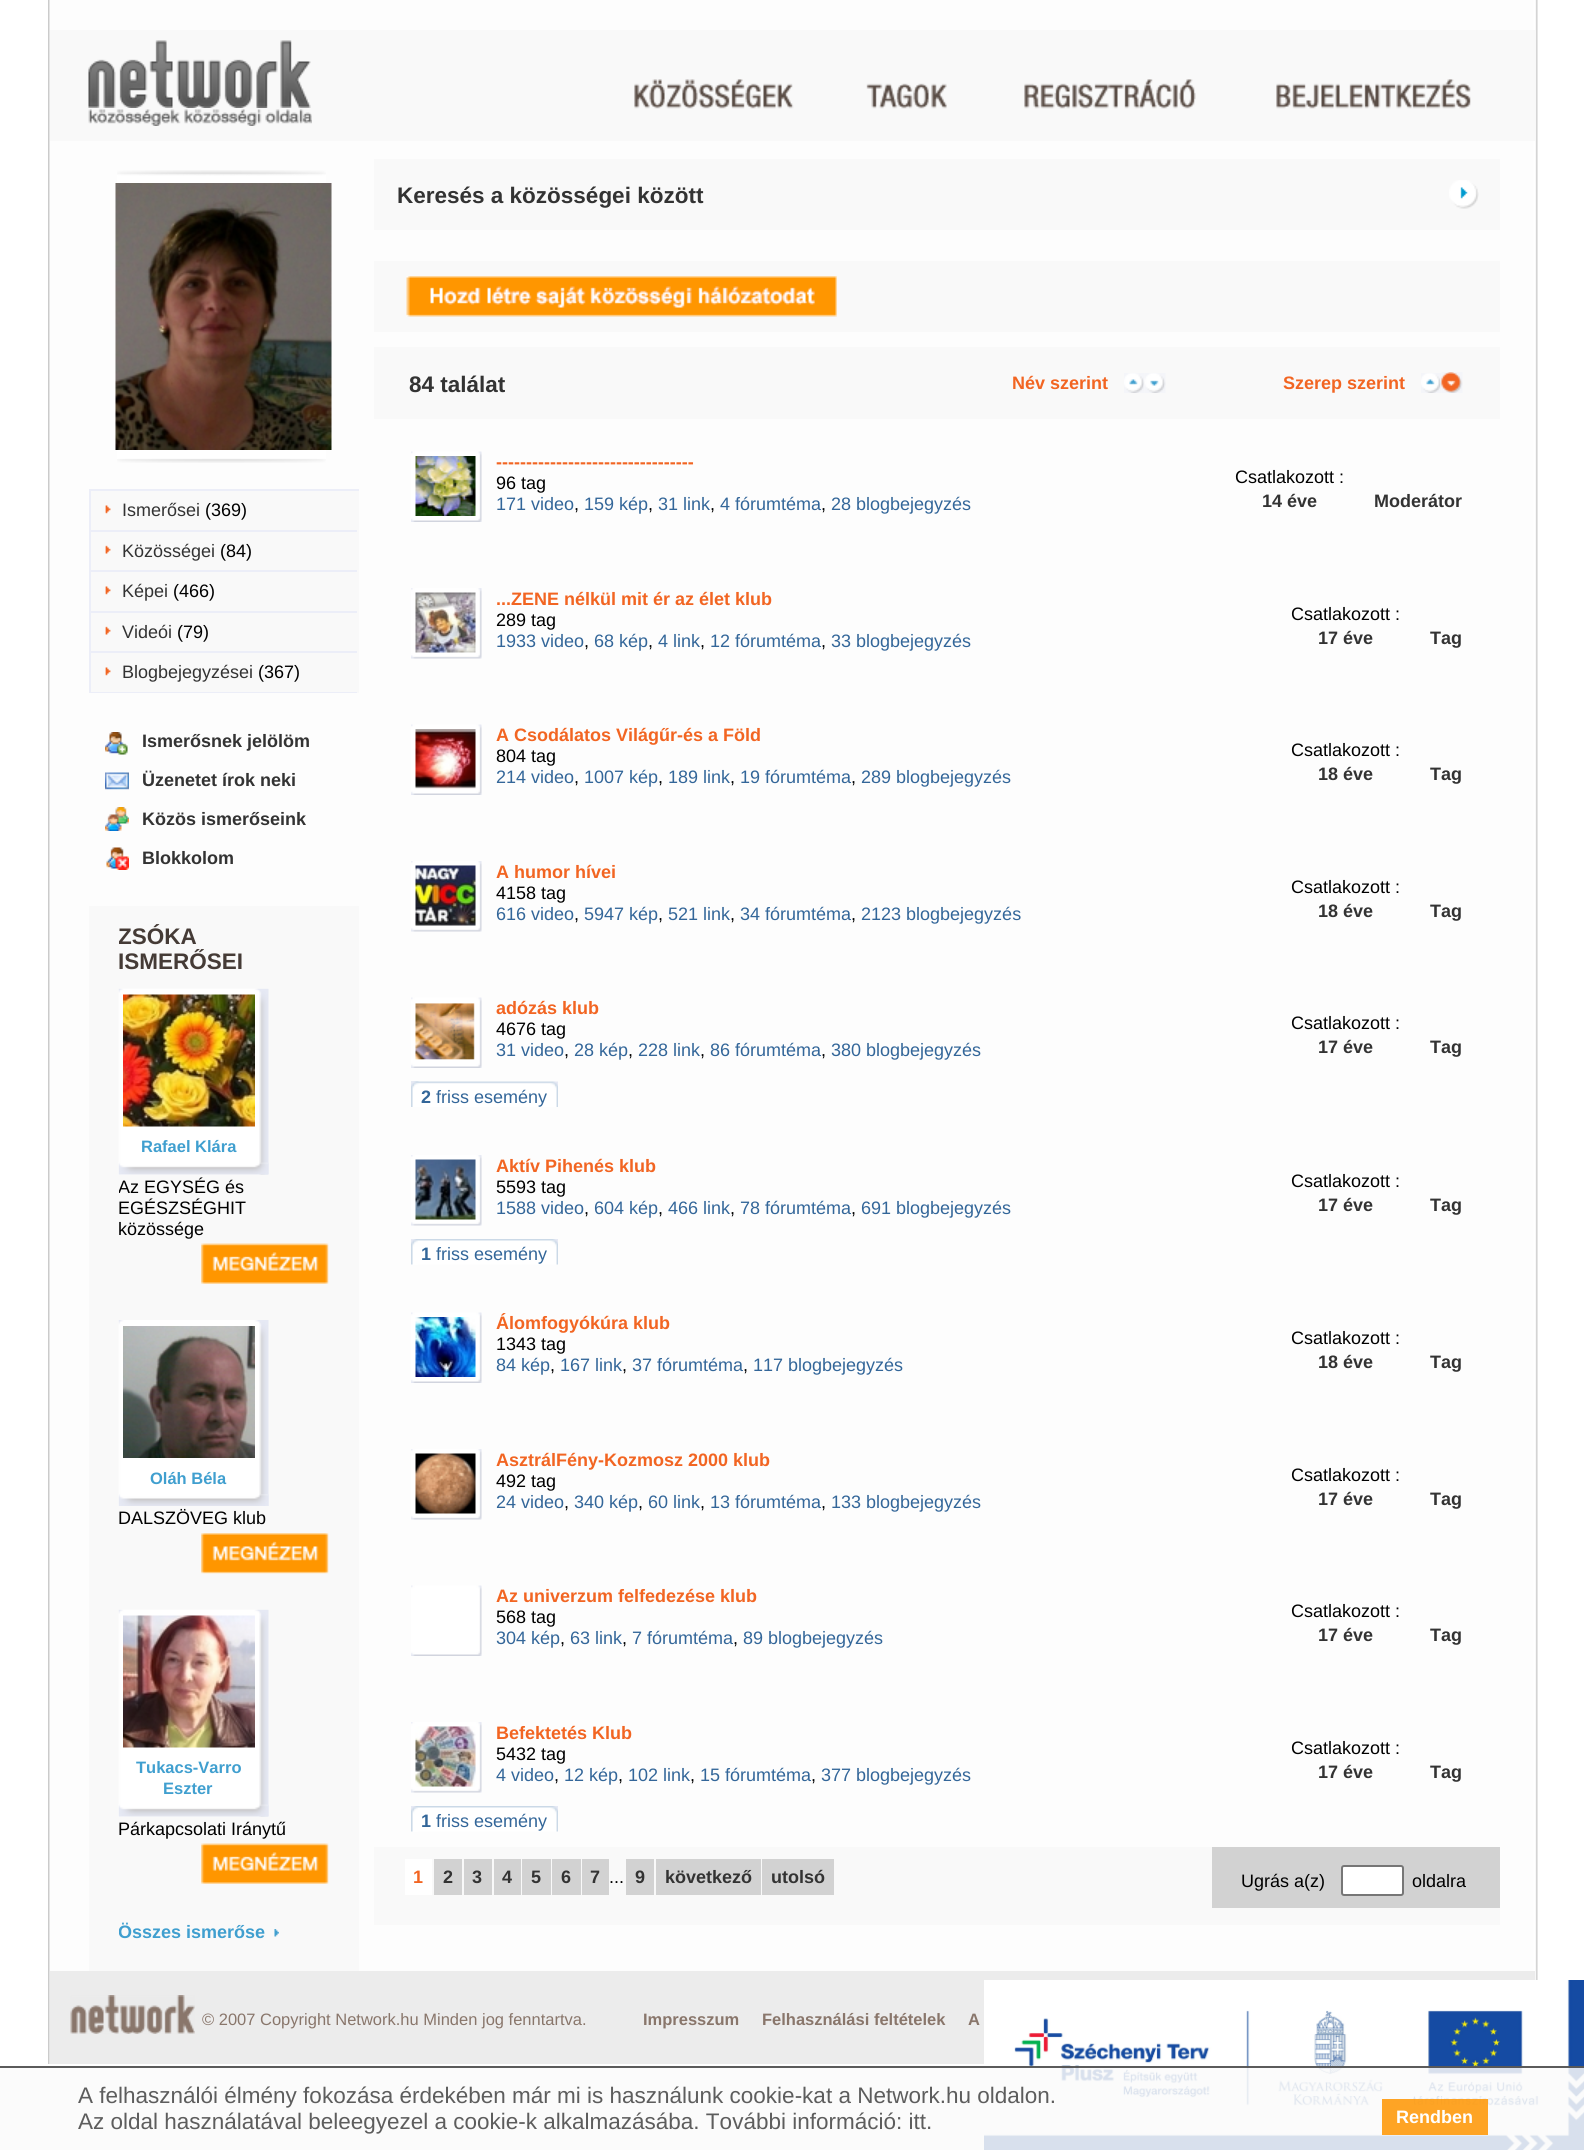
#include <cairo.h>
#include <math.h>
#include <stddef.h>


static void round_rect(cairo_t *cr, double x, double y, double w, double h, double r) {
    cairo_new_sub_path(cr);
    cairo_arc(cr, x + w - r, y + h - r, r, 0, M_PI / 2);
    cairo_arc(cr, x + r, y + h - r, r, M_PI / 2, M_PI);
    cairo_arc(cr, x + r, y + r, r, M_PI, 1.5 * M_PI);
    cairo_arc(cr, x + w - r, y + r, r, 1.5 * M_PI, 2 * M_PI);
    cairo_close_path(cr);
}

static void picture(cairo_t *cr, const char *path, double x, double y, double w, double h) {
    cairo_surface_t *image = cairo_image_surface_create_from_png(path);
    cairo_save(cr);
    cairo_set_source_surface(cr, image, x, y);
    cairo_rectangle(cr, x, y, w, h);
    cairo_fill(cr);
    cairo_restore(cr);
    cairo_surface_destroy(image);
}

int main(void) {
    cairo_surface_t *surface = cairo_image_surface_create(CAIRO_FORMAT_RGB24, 1584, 2150);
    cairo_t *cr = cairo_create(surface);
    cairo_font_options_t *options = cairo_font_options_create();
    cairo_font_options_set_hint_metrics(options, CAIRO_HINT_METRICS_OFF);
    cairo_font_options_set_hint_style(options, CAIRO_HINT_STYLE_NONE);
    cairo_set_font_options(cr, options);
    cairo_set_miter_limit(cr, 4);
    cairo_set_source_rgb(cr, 1, 1, 1);
    cairo_paint(cr);
    picture(cr, "img1.png", 48, 0, 1490, 2064);
    cairo_set_source_rgb(cr, 0.976, 0.976, 0.976);
    cairo_rectangle(cr, 50, 30, 1485, 111);
    cairo_fill(cr);
    picture(cr, "img2.png", 88, 40, 223, 68);
    picture(cr, "img3.png", 88, 109, 224, 17);
    picture(cr, "img4.png", 634, 79, 160, 30);
    picture(cr, "img5.png", 866, 83, 81, 26);
    picture(cr, "img6.png", 1024, 79, 172, 30);
    picture(cr, "img7.png", 1276, 79, 195, 30);
    picture(cr, "img8.png", 117, 170, 209, 293);
    picture(cr, "img9.png", 115, 183, 217, 267);
    cairo_set_source_rgb(cr, 0.973, 0.973, 0.973);
    cairo_rectangle(cr, 91, 491, 268, 202);
    cairo_fill(cr);
    cairo_set_source_rgb(cr, 0.925, 0.933, 0.969);
    cairo_rectangle(cr, 89, 489, 270, 2);
    cairo_fill(cr);
    cairo_rectangle(cr, 89, 489, 2, 204);
    cairo_fill(cr);
    picture(cr, "img10.png", 105, 505, 6, 9);
    cairo_rectangle(cr, 90, 530, 267, 2);
    cairo_fill(cr);
    cairo_select_font_face(cr, "Liberation Sans", CAIRO_FONT_SLANT_NORMAL, CAIRO_FONT_WEIGHT_NORMAL);
    cairo_set_font_size(cr, 18);
    cairo_set_source_rgb(cr, 0.2, 0.2, 0.2);
    cairo_move_to(cr, 122, 516);
    cairo_show_text(cr, "Ismerősei");
    cairo_set_source_rgb(cr, 0, 0, 0);
    cairo_move_to(cr, 205, 516);
    cairo_show_text(cr, "(369)");
    picture(cr, "img11.png", 105, 545, 6, 9);
    cairo_set_source_rgb(cr, 0.925, 0.933, 0.969);
    cairo_rectangle(cr, 90, 570, 267, 2);
    cairo_fill(cr);
    cairo_set_source_rgb(cr, 0.2, 0.2, 0.2);
    cairo_move_to(cr, 122, 557);
    cairo_show_text(cr, "Közösségei");
    cairo_set_source_rgb(cr, 0, 0, 0);
    cairo_move_to(cr, 220, 557);
    cairo_show_text(cr, "(84)");
    picture(cr, "img10.png", 105, 586, 6, 9);
    cairo_set_source_rgb(cr, 0.925, 0.933, 0.969);
    cairo_rectangle(cr, 90, 611, 267, 2);
    cairo_fill(cr);
    cairo_set_source_rgb(cr, 0.2, 0.2, 0.2);
    cairo_move_to(cr, 122, 597);
    cairo_show_text(cr, "Képei");
    cairo_set_source_rgb(cr, 0, 0, 0);
    cairo_move_to(cr, 173, 597);
    cairo_show_text(cr, "(466)");
    picture(cr, "img11.png", 105, 626, 6, 9);
    cairo_set_source_rgb(cr, 0.925, 0.933, 0.969);
    cairo_rectangle(cr, 90, 651, 267, 2);
    cairo_fill(cr);
    cairo_set_source_rgb(cr, 0.2, 0.2, 0.2);
    cairo_move_to(cr, 122, 638);
    cairo_show_text(cr, "Videói");
    cairo_set_source_rgb(cr, 0, 0, 0);
    cairo_move_to(cr, 177, 638);
    cairo_show_text(cr, "(79)");
    picture(cr, "img10.png", 105, 667, 6, 9);
    cairo_set_source_rgb(cr, 0.925, 0.933, 0.969);
    cairo_rectangle(cr, 90, 692, 267, 1);
    cairo_fill(cr);
    cairo_set_source_rgb(cr, 0.2, 0.2, 0.2);
    cairo_move_to(cr, 122, 678);
    cairo_show_text(cr, "Blogbejegyzései");
    cairo_set_source_rgb(cr, 0, 0, 0);
    cairo_move_to(cr, 258, 678);
    cairo_show_text(cr, "(367)");
    picture(cr, "img12.png", 105, 732, 23, 23);
    cairo_select_font_face(cr, "Liberation Sans", CAIRO_FONT_SLANT_NORMAL, CAIRO_FONT_WEIGHT_BOLD);
    cairo_set_source_rgb(cr, 0.2, 0.2, 0.2);
    cairo_move_to(cr, 142, 747);
    cairo_show_text(cr, "Ismerősnek jelölöm");
    picture(cr, "img13.png", 105, 772, 24, 18);
    cairo_move_to(cr, 142, 786);
    cairo_show_text(cr, "Üzenetet írok neki");
    picture(cr, "img14.png", 105, 807, 24, 24);
    cairo_move_to(cr, 142, 825);
    cairo_show_text(cr, "Közös ismerőseink");
    picture(cr, "img15.png", 106, 847, 23, 23);
    cairo_move_to(cr, 142, 864);
    cairo_show_text(cr, "Blokkolom");
    cairo_set_source_rgb(cr, 0.973, 0.973, 0.973);
    cairo_rectangle(cr, 89, 906, 270, 1065);
    cairo_fill(cr);
    cairo_save(cr);
    cairo_rectangle(cr, 119, 923, 210, 51);
    cairo_clip(cr);
    cairo_set_font_size(cr, 22.5);
    cairo_set_source_rgb(cr, 0.271, 0.231, 0.212);
    cairo_move_to(cr, 118, 944);
    cairo_show_text(cr, "ZSÓKA");
    cairo_restore(cr);
    cairo_set_font_size(cr, 22.5);
    cairo_set_source_rgb(cr, 0.271, 0.231, 0.212);
    cairo_move_to(cr, 118, 969);
    cairo_show_text(cr, "ISMERŐSEI");
    picture(cr, "img16.png", 118, 988, 151, 187);
    picture(cr, "img17.png", 123, 994, 132, 133);
    cairo_set_font_size(cr, 16.5);
    cairo_set_source_rgb(cr, 0.251, 0.624, 0.812);
    cairo_move_to(cr, 141, 1152);
    cairo_show_text(cr, "Rafael Klára");
    picture(cr, "img18.png", 118, 1162, 151, 13);
    cairo_save(cr);
    cairo_rectangle(cr, 119, 989, 210, 295);
    cairo_clip(cr);
    cairo_select_font_face(cr, "Liberation Sans", CAIRO_FONT_SLANT_NORMAL, CAIRO_FONT_WEIGHT_NORMAL);
    cairo_set_font_size(cr, 18);
    cairo_set_source_rgb(cr, 0, 0, 0);
    cairo_move_to(cr, 118, 1193);
    cairo_show_text(cr, "Az EGYSÉG és");
    cairo_restore(cr);
    cairo_select_font_face(cr, "Liberation Sans", CAIRO_FONT_SLANT_NORMAL, CAIRO_FONT_WEIGHT_NORMAL);
    cairo_set_font_size(cr, 18);
    cairo_set_source_rgb(cr, 0, 0, 0);
    cairo_move_to(cr, 118, 1214);
    cairo_show_text(cr, "EGÉSZSÉGHIT");
    cairo_move_to(cr, 118, 1235);
    cairo_show_text(cr, "közössége");
    picture(cr, "img19.png", 201, 1243, 128, 41);
    picture(cr, "img20.png", 118, 1320, 151, 186);
    picture(cr, "img21.png", 123, 1326, 132, 132);
    cairo_select_font_face(cr, "Liberation Sans", CAIRO_FONT_SLANT_NORMAL, CAIRO_FONT_WEIGHT_BOLD);
    cairo_set_font_size(cr, 16.5);
    cairo_set_source_rgb(cr, 0.251, 0.624, 0.812);
    cairo_move_to(cr, 150, 1484);
    cairo_show_text(cr, "Oláh Béla");
    picture(cr, "img22.png", 118, 1494, 151, 12);
    cairo_select_font_face(cr, "Liberation Sans", CAIRO_FONT_SLANT_NORMAL, CAIRO_FONT_WEIGHT_NORMAL);
    cairo_set_font_size(cr, 18);
    cairo_set_source_rgb(cr, 0, 0, 0);
    cairo_move_to(cr, 118, 1524);
    cairo_show_text(cr, "DALSZÖVEG klub");
    picture(cr, "img23.png", 201, 1533, 128, 41);
    picture(cr, "img24.png", 118, 1609, 151, 208);
    picture(cr, "img25.png", 123, 1615, 132, 133);
    cairo_select_font_face(cr, "Liberation Sans", CAIRO_FONT_SLANT_NORMAL, CAIRO_FONT_WEIGHT_BOLD);
    cairo_set_font_size(cr, 16.5);
    cairo_set_source_rgb(cr, 0.251, 0.624, 0.812);
    cairo_move_to(cr, 136, 1773);
    cairo_show_text(cr, "Tukacs-Varro");
    cairo_move_to(cr, 163, 1794);
    cairo_show_text(cr, "Eszter");
    picture(cr, "img18.png", 118, 1804, 151, 13);
    cairo_select_font_face(cr, "Liberation Sans", CAIRO_FONT_SLANT_NORMAL, CAIRO_FONT_WEIGHT_NORMAL);
    cairo_set_font_size(cr, 18);
    cairo_set_source_rgb(cr, 0, 0, 0);
    cairo_move_to(cr, 118, 1835);
    cairo_show_text(cr, "Párkapcsolati Iránytű");
    picture(cr, "img19.png", 201, 1843, 128, 41);
    cairo_save(cr);
    cairo_rectangle(cr, 119, 1920, 210, 24);
    cairo_clip(cr);
    cairo_select_font_face(cr, "Liberation Sans", CAIRO_FONT_SLANT_NORMAL, CAIRO_FONT_WEIGHT_BOLD);
    cairo_set_source_rgb(cr, 0.251, 0.624, 0.812);
    cairo_move_to(cr, 118, 1938);
    cairo_show_text(cr, "Összes ismerőse");
    cairo_restore(cr);
    picture(cr, "img26.png", 274, 1929, 5, 8);
    cairo_set_source_rgb(cr, 0.976, 0.976, 0.976);
    cairo_rectangle(cr, 374, 159, 1126, 71);
    cairo_fill(cr);
    cairo_select_font_face(cr, "Liberation Sans", CAIRO_FONT_SLANT_NORMAL, CAIRO_FONT_WEIGHT_BOLD);
    cairo_set_font_size(cr, 22.5);
    cairo_set_source_rgb(cr, 0.2, 0.2, 0.2);
    cairo_move_to(cr, 397, 203);
    cairo_show_text(cr, "Keresés a közösségei között");
    picture(cr, "img27.png", 1449, 180, 30, 29);
    cairo_set_source_rgb(cr, 0.973, 0.973, 0.973);
    cairo_rectangle(cr, 374, 261, 1126, 71);
    cairo_fill(cr);
    cairo_set_source_rgb(cr, 0.941, 0.941, 0.941);
    cairo_rectangle(cr, 407, 316, 430, 1);
    cairo_fill(cr);
    picture(cr, "img28.png", 406, 276, 431, 41);
    cairo_set_source_rgb(cr, 0.973, 0.973, 0.973);
    cairo_rectangle(cr, 374, 347, 1126, 72);
    cairo_fill(cr);
    cairo_set_source_rgb(cr, 0.2, 0.2, 0.2);
    cairo_move_to(cr, 409, 392);
    cairo_show_text(cr, "84 találat");
    cairo_set_font_size(cr, 18);
    cairo_set_source_rgb(cr, 0.949, 0.396, 0.133);
    cairo_move_to(cr, 1012, 389);
    cairo_show_text(cr, "Név szerint");
    picture(cr, "img29.png", 1124, 373, 21, 20);
    picture(cr, "img30.png", 1144, 373, 22, 20);
    cairo_move_to(cr, 1283, 389);
    cairo_show_text(cr, "Szerep szerint");
    picture(cr, "img29.png", 1421, 373, 21, 20);
    picture(cr, "img31.png", 1441, 372, 22, 21);
    picture(cr, "img32.png", 411, 451, 71, 71);
    picture(cr, "img33.png", 415, 456, 61, 60);
    cairo_move_to(cr, 496, 468);
    cairo_show_text(cr, "---------------------------------");
    cairo_select_font_face(cr, "Liberation Sans", CAIRO_FONT_SLANT_NORMAL, CAIRO_FONT_WEIGHT_NORMAL);
    cairo_set_source_rgb(cr, 0, 0, 0);
    cairo_move_to(cr, 496, 489);
    cairo_show_text(cr, "96 tag");
    cairo_set_source_rgb(cr, 0.2, 0.4, 0.6);
    cairo_move_to(cr, 496, 510);
    cairo_show_text(cr, "171 video");
    cairo_set_source_rgb(cr, 0, 0, 0);
    cairo_move_to(cr, 574, 510);
    cairo_show_text(cr, ",");
    cairo_set_source_rgb(cr, 0.2, 0.4, 0.6);
    cairo_move_to(cr, 584, 510);
    cairo_show_text(cr, "159 kép");
    cairo_set_source_rgb(cr, 0, 0, 0);
    cairo_move_to(cr, 648, 510);
    cairo_show_text(cr, ",");
    cairo_set_source_rgb(cr, 0.2, 0.4, 0.6);
    cairo_move_to(cr, 658, 510);
    cairo_show_text(cr, "31 link");
    cairo_set_source_rgb(cr, 0, 0, 0);
    cairo_move_to(cr, 710, 510);
    cairo_show_text(cr, ",");
    cairo_set_source_rgb(cr, 0.2, 0.4, 0.6);
    cairo_move_to(cr, 720, 510);
    cairo_show_text(cr, "4 fórumtéma");
    cairo_set_source_rgb(cr, 0, 0, 0);
    cairo_move_to(cr, 821, 510);
    cairo_show_text(cr, ",");
    cairo_set_source_rgb(cr, 0.2, 0.4, 0.6);
    cairo_move_to(cr, 831, 510);
    cairo_show_text(cr, "28 blogbejegyzés");
    cairo_set_source_rgb(cr, 0, 0, 0);
    cairo_move_to(cr, 1235, 483);
    cairo_show_text(cr, "Csatlakozott :");
    cairo_select_font_face(cr, "Liberation Sans", CAIRO_FONT_SLANT_NORMAL, CAIRO_FONT_WEIGHT_BOLD);
    cairo_set_source_rgb(cr, 0.2, 0.2, 0.2);
    cairo_move_to(cr, 1262, 507);
    cairo_show_text(cr, "14 éve");
    cairo_move_to(cr, 1374, 507);
    cairo_show_text(cr, "Moderátor");
    picture(cr, "img34.png", 411, 588, 71, 71);
    picture(cr, "img35.png", 415, 592, 61, 61);
    cairo_set_source_rgb(cr, 0.949, 0.396, 0.133);
    cairo_move_to(cr, 496, 605);
    cairo_show_text(cr, "...ZENE nélkül mit ér az élet klub");
    cairo_select_font_face(cr, "Liberation Sans", CAIRO_FONT_SLANT_NORMAL, CAIRO_FONT_WEIGHT_NORMAL);
    cairo_set_source_rgb(cr, 0, 0, 0);
    cairo_move_to(cr, 496, 626);
    cairo_show_text(cr, "289 tag");
    cairo_set_source_rgb(cr, 0.2, 0.4, 0.6);
    cairo_move_to(cr, 496, 647);
    cairo_show_text(cr, "1933 video");
    cairo_set_source_rgb(cr, 0, 0, 0);
    cairo_move_to(cr, 584, 647);
    cairo_show_text(cr, ",");
    cairo_set_source_rgb(cr, 0.2, 0.4, 0.6);
    cairo_move_to(cr, 594, 647);
    cairo_show_text(cr, "68 kép");
    cairo_set_source_rgb(cr, 0, 0, 0);
    cairo_move_to(cr, 648, 647);
    cairo_show_text(cr, ",");
    cairo_set_source_rgb(cr, 0.2, 0.4, 0.6);
    cairo_move_to(cr, 658, 647);
    cairo_show_text(cr, "4 link");
    cairo_set_source_rgb(cr, 0, 0, 0);
    cairo_move_to(cr, 700, 647);
    cairo_show_text(cr, ",");
    cairo_set_source_rgb(cr, 0.2, 0.4, 0.6);
    cairo_move_to(cr, 710, 647);
    cairo_show_text(cr, "12 fórumtéma");
    cairo_set_source_rgb(cr, 0, 0, 0);
    cairo_move_to(cr, 821, 647);
    cairo_show_text(cr, ",");
    cairo_set_source_rgb(cr, 0.2, 0.4, 0.6);
    cairo_move_to(cr, 831, 647);
    cairo_show_text(cr, "33 blogbejegyzés");
    cairo_set_source_rgb(cr, 0, 0, 0);
    cairo_move_to(cr, 1291, 620);
    cairo_show_text(cr, "Csatlakozott :");
    cairo_select_font_face(cr, "Liberation Sans", CAIRO_FONT_SLANT_NORMAL, CAIRO_FONT_WEIGHT_BOLD);
    cairo_set_source_rgb(cr, 0.2, 0.2, 0.2);
    cairo_move_to(cr, 1318, 644);
    cairo_show_text(cr, "17 éve");
    cairo_move_to(cr, 1430, 644);
    cairo_show_text(cr, "Tag");
    picture(cr, "img32.png", 411, 724, 71, 71);
    picture(cr, "img36.png", 415, 729, 61, 60);
    cairo_set_source_rgb(cr, 0.949, 0.396, 0.133);
    cairo_move_to(cr, 496, 741);
    cairo_show_text(cr, "A Csodálatos Világűr-és a Föld");
    cairo_select_font_face(cr, "Liberation Sans", CAIRO_FONT_SLANT_NORMAL, CAIRO_FONT_WEIGHT_NORMAL);
    cairo_set_source_rgb(cr, 0, 0, 0);
    cairo_move_to(cr, 496, 762);
    cairo_show_text(cr, "804 tag");
    cairo_set_source_rgb(cr, 0.2, 0.4, 0.6);
    cairo_move_to(cr, 496, 783);
    cairo_show_text(cr, "214 video");
    cairo_set_source_rgb(cr, 0, 0, 0);
    cairo_move_to(cr, 574, 783);
    cairo_show_text(cr, ",");
    cairo_set_source_rgb(cr, 0.2, 0.4, 0.6);
    cairo_move_to(cr, 584, 783);
    cairo_show_text(cr, "1007 kép");
    cairo_set_source_rgb(cr, 0, 0, 0);
    cairo_move_to(cr, 658, 783);
    cairo_show_text(cr, ",");
    cairo_set_source_rgb(cr, 0.2, 0.4, 0.6);
    cairo_move_to(cr, 668, 783);
    cairo_show_text(cr, "189 link");
    cairo_set_source_rgb(cr, 0, 0, 0);
    cairo_move_to(cr, 730, 783);
    cairo_show_text(cr, ",");
    cairo_set_source_rgb(cr, 0.2, 0.4, 0.6);
    cairo_move_to(cr, 740, 783);
    cairo_show_text(cr, "19 fórumtéma");
    cairo_set_source_rgb(cr, 0, 0, 0);
    cairo_move_to(cr, 851, 783);
    cairo_show_text(cr, ",");
    cairo_set_source_rgb(cr, 0.2, 0.4, 0.6);
    cairo_move_to(cr, 861, 783);
    cairo_show_text(cr, "289 blogbejegyzés");
    cairo_set_source_rgb(cr, 0, 0, 0);
    cairo_move_to(cr, 1291, 756);
    cairo_show_text(cr, "Csatlakozott :");
    cairo_select_font_face(cr, "Liberation Sans", CAIRO_FONT_SLANT_NORMAL, CAIRO_FONT_WEIGHT_BOLD);
    cairo_set_source_rgb(cr, 0.2, 0.2, 0.2);
    cairo_move_to(cr, 1318, 780);
    cairo_show_text(cr, "18 éve");
    cairo_move_to(cr, 1430, 780);
    cairo_show_text(cr, "Tag");
    picture(cr, "img34.png", 411, 861, 71, 71);
    picture(cr, "img37.png", 415, 865, 61, 61);
    cairo_set_source_rgb(cr, 0.949, 0.396, 0.133);
    cairo_move_to(cr, 496, 878);
    cairo_show_text(cr, "A humor hívei");
    cairo_select_font_face(cr, "Liberation Sans", CAIRO_FONT_SLANT_NORMAL, CAIRO_FONT_WEIGHT_NORMAL);
    cairo_set_source_rgb(cr, 0, 0, 0);
    cairo_move_to(cr, 496, 899);
    cairo_show_text(cr, "4158 tag");
    cairo_set_source_rgb(cr, 0.2, 0.4, 0.6);
    cairo_move_to(cr, 496, 920);
    cairo_show_text(cr, "616 video");
    cairo_set_source_rgb(cr, 0, 0, 0);
    cairo_move_to(cr, 574, 920);
    cairo_show_text(cr, ",");
    cairo_set_source_rgb(cr, 0.2, 0.4, 0.6);
    cairo_move_to(cr, 584, 920);
    cairo_show_text(cr, "5947 kép");
    cairo_set_source_rgb(cr, 0, 0, 0);
    cairo_move_to(cr, 658, 920);
    cairo_show_text(cr, ",");
    cairo_set_source_rgb(cr, 0.2, 0.4, 0.6);
    cairo_move_to(cr, 668, 920);
    cairo_show_text(cr, "521 link");
    cairo_set_source_rgb(cr, 0, 0, 0);
    cairo_move_to(cr, 730, 920);
    cairo_show_text(cr, ",");
    cairo_set_source_rgb(cr, 0.2, 0.4, 0.6);
    cairo_move_to(cr, 740, 920);
    cairo_show_text(cr, "34 fórumtéma");
    cairo_set_source_rgb(cr, 0, 0, 0);
    cairo_move_to(cr, 851, 920);
    cairo_show_text(cr, ",");
    cairo_set_source_rgb(cr, 0.2, 0.4, 0.6);
    cairo_move_to(cr, 861, 920);
    cairo_show_text(cr, "2123 blogbejegyzés");
    cairo_set_source_rgb(cr, 0, 0, 0);
    cairo_move_to(cr, 1291, 893);
    cairo_show_text(cr, "Csatlakozott :");
    cairo_select_font_face(cr, "Liberation Sans", CAIRO_FONT_SLANT_NORMAL, CAIRO_FONT_WEIGHT_BOLD);
    cairo_set_source_rgb(cr, 0.2, 0.2, 0.2);
    cairo_move_to(cr, 1318, 917);
    cairo_show_text(cr, "18 éve");
    cairo_move_to(cr, 1430, 917);
    cairo_show_text(cr, "Tag");
    picture(cr, "img32.png", 411, 997, 71, 71);
    picture(cr, "img38.png", 415, 1003, 60, 57);
    cairo_set_source_rgb(cr, 0.949, 0.396, 0.133);
    cairo_move_to(cr, 496, 1014);
    cairo_show_text(cr, "adózás klub");
    cairo_select_font_face(cr, "Liberation Sans", CAIRO_FONT_SLANT_NORMAL, CAIRO_FONT_WEIGHT_NORMAL);
    cairo_set_source_rgb(cr, 0, 0, 0);
    cairo_move_to(cr, 496, 1035);
    cairo_show_text(cr, "4676 tag");
    cairo_set_source_rgb(cr, 0.2, 0.4, 0.6);
    cairo_move_to(cr, 496, 1056);
    cairo_show_text(cr, "31 video");
    cairo_set_source_rgb(cr, 0, 0, 0);
    cairo_move_to(cr, 564, 1056);
    cairo_show_text(cr, ",");
    cairo_set_source_rgb(cr, 0.2, 0.4, 0.6);
    cairo_move_to(cr, 574, 1056);
    cairo_show_text(cr, "28 kép");
    cairo_set_source_rgb(cr, 0, 0, 0);
    cairo_move_to(cr, 628, 1056);
    cairo_show_text(cr, ",");
    cairo_set_source_rgb(cr, 0.2, 0.4, 0.6);
    cairo_move_to(cr, 638, 1056);
    cairo_show_text(cr, "228 link");
    cairo_set_source_rgb(cr, 0, 0, 0);
    cairo_move_to(cr, 700, 1056);
    cairo_show_text(cr, ",");
    cairo_set_source_rgb(cr, 0.2, 0.4, 0.6);
    cairo_move_to(cr, 710, 1056);
    cairo_show_text(cr, "86 fórumtéma");
    cairo_set_source_rgb(cr, 0, 0, 0);
    cairo_move_to(cr, 821, 1056);
    cairo_show_text(cr, ",");
    cairo_set_source_rgb(cr, 0.2, 0.4, 0.6);
    cairo_move_to(cr, 831, 1056);
    cairo_show_text(cr, "380 blogbejegyzés");
    cairo_set_source_rgb(cr, 0, 0, 0);
    cairo_move_to(cr, 1291, 1029);
    cairo_show_text(cr, "Csatlakozott :");
    cairo_select_font_face(cr, "Liberation Sans", CAIRO_FONT_SLANT_NORMAL, CAIRO_FONT_WEIGHT_BOLD);
    cairo_set_source_rgb(cr, 0.2, 0.2, 0.2);
    cairo_move_to(cr, 1318, 1053);
    cairo_show_text(cr, "17 éve");
    cairo_move_to(cr, 1430, 1053);
    cairo_show_text(cr, "Tag");
    picture(cr, "img39.png", 411, 1081, 147, 26);
    picture(cr, "img40.png", 411, 1081, 8, 26);
    cairo_set_source_rgb(cr, 0.2, 0.4, 0.6);
    cairo_move_to(cr, 421, 1103);
    cairo_show_text(cr, "2");
    cairo_select_font_face(cr, "Liberation Sans", CAIRO_FONT_SLANT_NORMAL, CAIRO_FONT_WEIGHT_NORMAL);
    cairo_move_to(cr, 436, 1103);
    cairo_show_text(cr, "friss esemény");
    picture(cr, "img34.png", 411, 1155, 71, 71);
    picture(cr, "img41.png", 415, 1159, 61, 61);
    cairo_select_font_face(cr, "Liberation Sans", CAIRO_FONT_SLANT_NORMAL, CAIRO_FONT_WEIGHT_BOLD);
    cairo_set_source_rgb(cr, 0.949, 0.396, 0.133);
    cairo_move_to(cr, 496, 1172);
    cairo_show_text(cr, "Aktív Pihenés klub");
    cairo_select_font_face(cr, "Liberation Sans", CAIRO_FONT_SLANT_NORMAL, CAIRO_FONT_WEIGHT_NORMAL);
    cairo_set_source_rgb(cr, 0, 0, 0);
    cairo_move_to(cr, 496, 1193);
    cairo_show_text(cr, "5593 tag");
    cairo_set_source_rgb(cr, 0.2, 0.4, 0.6);
    cairo_move_to(cr, 496, 1214);
    cairo_show_text(cr, "1588 video");
    cairo_set_source_rgb(cr, 0, 0, 0);
    cairo_move_to(cr, 584, 1214);
    cairo_show_text(cr, ",");
    cairo_set_source_rgb(cr, 0.2, 0.4, 0.6);
    cairo_move_to(cr, 594, 1214);
    cairo_show_text(cr, "604 kép");
    cairo_set_source_rgb(cr, 0, 0, 0);
    cairo_move_to(cr, 658, 1214);
    cairo_show_text(cr, ",");
    cairo_set_source_rgb(cr, 0.2, 0.4, 0.6);
    cairo_move_to(cr, 668, 1214);
    cairo_show_text(cr, "466 link");
    cairo_set_source_rgb(cr, 0, 0, 0);
    cairo_move_to(cr, 730, 1214);
    cairo_show_text(cr, ",");
    cairo_set_source_rgb(cr, 0.2, 0.4, 0.6);
    cairo_move_to(cr, 740, 1214);
    cairo_show_text(cr, "78 fórumtéma");
    cairo_set_source_rgb(cr, 0, 0, 0);
    cairo_move_to(cr, 851, 1214);
    cairo_show_text(cr, ",");
    cairo_set_source_rgb(cr, 0.2, 0.4, 0.6);
    cairo_move_to(cr, 861, 1214);
    cairo_show_text(cr, "691 blogbejegyzés");
    cairo_set_source_rgb(cr, 0, 0, 0);
    cairo_move_to(cr, 1291, 1187);
    cairo_show_text(cr, "Csatlakozott :");
    cairo_select_font_face(cr, "Liberation Sans", CAIRO_FONT_SLANT_NORMAL, CAIRO_FONT_WEIGHT_BOLD);
    cairo_set_source_rgb(cr, 0.2, 0.2, 0.2);
    cairo_move_to(cr, 1318, 1211);
    cairo_show_text(cr, "17 éve");
    cairo_move_to(cr, 1430, 1211);
    cairo_show_text(cr, "Tag");
    picture(cr, "img42.png", 411, 1239, 147, 26);
    picture(cr, "img43.png", 411, 1239, 7, 26);
    cairo_set_source_rgb(cr, 0.2, 0.4, 0.6);
    cairo_move_to(cr, 421, 1260);
    cairo_show_text(cr, "1");
    cairo_select_font_face(cr, "Liberation Sans", CAIRO_FONT_SLANT_NORMAL, CAIRO_FONT_WEIGHT_NORMAL);
    cairo_move_to(cr, 436, 1260);
    cairo_show_text(cr, "friss esemény");
    picture(cr, "img32.png", 411, 1312, 71, 71);
    picture(cr, "img44.png", 415, 1317, 61, 60);
    cairo_select_font_face(cr, "Liberation Sans", CAIRO_FONT_SLANT_NORMAL, CAIRO_FONT_WEIGHT_BOLD);
    cairo_set_source_rgb(cr, 0.949, 0.396, 0.133);
    cairo_move_to(cr, 496, 1329);
    cairo_show_text(cr, "Álomfogyókúra klub");
    cairo_select_font_face(cr, "Liberation Sans", CAIRO_FONT_SLANT_NORMAL, CAIRO_FONT_WEIGHT_NORMAL);
    cairo_set_source_rgb(cr, 0, 0, 0);
    cairo_move_to(cr, 496, 1350);
    cairo_show_text(cr, "1343 tag");
    cairo_set_source_rgb(cr, 0.2, 0.4, 0.6);
    cairo_move_to(cr, 496, 1371);
    cairo_show_text(cr, "84 kép");
    cairo_set_source_rgb(cr, 0, 0, 0);
    cairo_move_to(cr, 550, 1371);
    cairo_show_text(cr, ",");
    cairo_set_source_rgb(cr, 0.2, 0.4, 0.6);
    cairo_move_to(cr, 560, 1371);
    cairo_show_text(cr, "167 link");
    cairo_set_source_rgb(cr, 0, 0, 0);
    cairo_move_to(cr, 622, 1371);
    cairo_show_text(cr, ",");
    cairo_set_source_rgb(cr, 0.2, 0.4, 0.6);
    cairo_move_to(cr, 632, 1371);
    cairo_show_text(cr, "37 fórumtéma");
    cairo_set_source_rgb(cr, 0, 0, 0);
    cairo_move_to(cr, 743, 1371);
    cairo_show_text(cr, ",");
    cairo_set_source_rgb(cr, 0.2, 0.4, 0.6);
    cairo_move_to(cr, 753, 1371);
    cairo_show_text(cr, "117 blogbejegyzés");
    cairo_set_source_rgb(cr, 0, 0, 0);
    cairo_move_to(cr, 1291, 1344);
    cairo_show_text(cr, "Csatlakozott :");
    cairo_select_font_face(cr, "Liberation Sans", CAIRO_FONT_SLANT_NORMAL, CAIRO_FONT_WEIGHT_BOLD);
    cairo_set_source_rgb(cr, 0.2, 0.2, 0.2);
    cairo_move_to(cr, 1318, 1368);
    cairo_show_text(cr, "18 éve");
    cairo_move_to(cr, 1430, 1368);
    cairo_show_text(cr, "Tag");
    picture(cr, "img34.png", 411, 1449, 71, 71);
    picture(cr, "img45.png", 415, 1453, 61, 61);
    cairo_set_source_rgb(cr, 0.949, 0.396, 0.133);
    cairo_move_to(cr, 496, 1466);
    cairo_show_text(cr, "AsztrálFény-Kozmosz 2000 klub");
    cairo_select_font_face(cr, "Liberation Sans", CAIRO_FONT_SLANT_NORMAL, CAIRO_FONT_WEIGHT_NORMAL);
    cairo_set_source_rgb(cr, 0, 0, 0);
    cairo_move_to(cr, 496, 1487);
    cairo_show_text(cr, "492 tag");
    cairo_set_source_rgb(cr, 0.2, 0.4, 0.6);
    cairo_move_to(cr, 496, 1508);
    cairo_show_text(cr, "24 video");
    cairo_set_source_rgb(cr, 0, 0, 0);
    cairo_move_to(cr, 564, 1508);
    cairo_show_text(cr, ",");
    cairo_set_source_rgb(cr, 0.2, 0.4, 0.6);
    cairo_move_to(cr, 574, 1508);
    cairo_show_text(cr, "340 kép");
    cairo_set_source_rgb(cr, 0, 0, 0);
    cairo_move_to(cr, 638, 1508);
    cairo_show_text(cr, ",");
    cairo_set_source_rgb(cr, 0.2, 0.4, 0.6);
    cairo_move_to(cr, 648, 1508);
    cairo_show_text(cr, "60 link");
    cairo_set_source_rgb(cr, 0, 0, 0);
    cairo_move_to(cr, 700, 1508);
    cairo_show_text(cr, ",");
    cairo_set_source_rgb(cr, 0.2, 0.4, 0.6);
    cairo_move_to(cr, 710, 1508);
    cairo_show_text(cr, "13 fórumtéma");
    cairo_set_source_rgb(cr, 0, 0, 0);
    cairo_move_to(cr, 821, 1508);
    cairo_show_text(cr, ",");
    cairo_set_source_rgb(cr, 0.2, 0.4, 0.6);
    cairo_move_to(cr, 831, 1508);
    cairo_show_text(cr, "133 blogbejegyzés");
    cairo_set_source_rgb(cr, 0, 0, 0);
    cairo_move_to(cr, 1291, 1481);
    cairo_show_text(cr, "Csatlakozott :");
    cairo_select_font_face(cr, "Liberation Sans", CAIRO_FONT_SLANT_NORMAL, CAIRO_FONT_WEIGHT_BOLD);
    cairo_set_source_rgb(cr, 0.2, 0.2, 0.2);
    cairo_move_to(cr, 1318, 1505);
    cairo_show_text(cr, "17 éve");
    cairo_move_to(cr, 1430, 1505);
    cairo_show_text(cr, "Tag");
    picture(cr, "img32.png", 411, 1585, 71, 71);
    cairo_set_source_rgb(cr, 0.949, 0.396, 0.133);
    cairo_move_to(cr, 496, 1602);
    cairo_show_text(cr, "Az univerzum felfedezése klub");
    cairo_select_font_face(cr, "Liberation Sans", CAIRO_FONT_SLANT_NORMAL, CAIRO_FONT_WEIGHT_NORMAL);
    cairo_set_source_rgb(cr, 0, 0, 0);
    cairo_move_to(cr, 496, 1623);
    cairo_show_text(cr, "568 tag");
    cairo_set_source_rgb(cr, 0.2, 0.4, 0.6);
    cairo_move_to(cr, 496, 1644);
    cairo_show_text(cr, "304 kép");
    cairo_set_source_rgb(cr, 0, 0, 0);
    cairo_move_to(cr, 560, 1644);
    cairo_show_text(cr, ",");
    cairo_set_source_rgb(cr, 0.2, 0.4, 0.6);
    cairo_move_to(cr, 570, 1644);
    cairo_show_text(cr, "63 link");
    cairo_set_source_rgb(cr, 0, 0, 0);
    cairo_move_to(cr, 622, 1644);
    cairo_show_text(cr, ",");
    cairo_set_source_rgb(cr, 0.2, 0.4, 0.6);
    cairo_move_to(cr, 632, 1644);
    cairo_show_text(cr, "7 fórumtéma");
    cairo_set_source_rgb(cr, 0, 0, 0);
    cairo_move_to(cr, 733, 1644);
    cairo_show_text(cr, ",");
    cairo_set_source_rgb(cr, 0.2, 0.4, 0.6);
    cairo_move_to(cr, 743, 1644);
    cairo_show_text(cr, "89 blogbejegyzés");
    cairo_set_source_rgb(cr, 0, 0, 0);
    cairo_move_to(cr, 1291, 1617);
    cairo_show_text(cr, "Csatlakozott :");
    cairo_select_font_face(cr, "Liberation Sans", CAIRO_FONT_SLANT_NORMAL, CAIRO_FONT_WEIGHT_BOLD);
    cairo_set_source_rgb(cr, 0.2, 0.2, 0.2);
    cairo_move_to(cr, 1318, 1641);
    cairo_show_text(cr, "17 éve");
    cairo_move_to(cr, 1430, 1641);
    cairo_show_text(cr, "Tag");
    picture(cr, "img34.png", 411, 1722, 71, 71);
    picture(cr, "img46.png", 415, 1726, 61, 61);
    cairo_set_source_rgb(cr, 0.949, 0.396, 0.133);
    cairo_move_to(cr, 496, 1739);
    cairo_show_text(cr, "Befektetés Klub");
    cairo_select_font_face(cr, "Liberation Sans", CAIRO_FONT_SLANT_NORMAL, CAIRO_FONT_WEIGHT_NORMAL);
    cairo_set_source_rgb(cr, 0, 0, 0);
    cairo_move_to(cr, 496, 1760);
    cairo_show_text(cr, "5432 tag");
    cairo_set_source_rgb(cr, 0.2, 0.4, 0.6);
    cairo_move_to(cr, 496, 1781);
    cairo_show_text(cr, "4 video");
    cairo_set_source_rgb(cr, 0, 0, 0);
    cairo_move_to(cr, 554, 1781);
    cairo_show_text(cr, ",");
    cairo_set_source_rgb(cr, 0.2, 0.4, 0.6);
    cairo_move_to(cr, 564, 1781);
    cairo_show_text(cr, "12 kép");
    cairo_set_source_rgb(cr, 0, 0, 0);
    cairo_move_to(cr, 618, 1781);
    cairo_show_text(cr, ",");
    cairo_set_source_rgb(cr, 0.2, 0.4, 0.6);
    cairo_move_to(cr, 628, 1781);
    cairo_show_text(cr, "102 link");
    cairo_set_source_rgb(cr, 0, 0, 0);
    cairo_move_to(cr, 690, 1781);
    cairo_show_text(cr, ",");
    cairo_set_source_rgb(cr, 0.2, 0.4, 0.6);
    cairo_move_to(cr, 700, 1781);
    cairo_show_text(cr, "15 fórumtéma");
    cairo_set_source_rgb(cr, 0, 0, 0);
    cairo_move_to(cr, 811, 1781);
    cairo_show_text(cr, ",");
    cairo_set_source_rgb(cr, 0.2, 0.4, 0.6);
    cairo_move_to(cr, 821, 1781);
    cairo_show_text(cr, "377 blogbejegyzés");
    cairo_set_source_rgb(cr, 0, 0, 0);
    cairo_move_to(cr, 1291, 1754);
    cairo_show_text(cr, "Csatlakozott :");
    cairo_select_font_face(cr, "Liberation Sans", CAIRO_FONT_SLANT_NORMAL, CAIRO_FONT_WEIGHT_BOLD);
    cairo_set_source_rgb(cr, 0.2, 0.2, 0.2);
    cairo_move_to(cr, 1318, 1778);
    cairo_show_text(cr, "17 éve");
    cairo_move_to(cr, 1430, 1778);
    cairo_show_text(cr, "Tag");
    picture(cr, "img42.png", 411, 1806, 147, 26);
    picture(cr, "img43.png", 411, 1806, 7, 26);
    cairo_set_source_rgb(cr, 0.2, 0.4, 0.6);
    cairo_move_to(cr, 421, 1827);
    cairo_show_text(cr, "1");
    cairo_select_font_face(cr, "Liberation Sans", CAIRO_FONT_SLANT_NORMAL, CAIRO_FONT_WEIGHT_NORMAL);
    cairo_move_to(cr, 436, 1827);
    cairo_show_text(cr, "friss esemény");
    cairo_set_source_rgb(cr, 0.973, 0.973, 0.973);
    cairo_rectangle(cr, 374, 1847, 1126, 78);
    cairo_fill(cr);
    cairo_set_source_rgb(cr, 1, 1, 1);
    cairo_rectangle(cr, 405, 1859, 27, 36);
    cairo_fill(cr);
    cairo_select_font_face(cr, "Liberation Sans", CAIRO_FONT_SLANT_NORMAL, CAIRO_FONT_WEIGHT_BOLD);
    cairo_set_source_rgb(cr, 0.949, 0.396, 0.133);
    cairo_move_to(cr, 413, 1883);
    cairo_show_text(cr, "1");
    cairo_set_source_rgb(cr, 0.824, 0.824, 0.824);
    cairo_rectangle(cr, 434, 1859, 28, 36);
    cairo_fill(cr);
    cairo_set_source_rgb(cr, 0.2, 0.2, 0.2);
    cairo_move_to(cr, 443, 1883);
    cairo_show_text(cr, "2");
    cairo_set_source_rgb(cr, 0.824, 0.824, 0.824);
    cairo_rectangle(cr, 464, 1859, 28, 36);
    cairo_fill(cr);
    cairo_set_source_rgb(cr, 0.2, 0.2, 0.2);
    cairo_move_to(cr, 472, 1883);
    cairo_show_text(cr, "3");
    cairo_set_source_rgb(cr, 0.824, 0.824, 0.824);
    cairo_rectangle(cr, 494, 1859, 27, 36);
    cairo_fill(cr);
    cairo_set_source_rgb(cr, 0.2, 0.2, 0.2);
    cairo_move_to(cr, 502, 1883);
    cairo_show_text(cr, "4");
    cairo_set_source_rgb(cr, 0.824, 0.824, 0.824);
    cairo_rectangle(cr, 522, 1859, 29, 36);
    cairo_fill(cr);
    cairo_set_source_rgb(cr, 0.2, 0.2, 0.2);
    cairo_move_to(cr, 531, 1883);
    cairo_show_text(cr, "5");
    cairo_set_source_rgb(cr, 0.824, 0.824, 0.824);
    cairo_rectangle(cr, 552, 1859, 29, 36);
    cairo_fill(cr);
    cairo_set_source_rgb(cr, 0.2, 0.2, 0.2);
    cairo_move_to(cr, 561, 1883);
    cairo_show_text(cr, "6");
    cairo_set_source_rgb(cr, 0.824, 0.824, 0.824);
    cairo_rectangle(cr, 582, 1859, 27, 36);
    cairo_fill(cr);
    cairo_set_source_rgb(cr, 0.2, 0.2, 0.2);
    cairo_move_to(cr, 590, 1883);
    cairo_show_text(cr, "7");
    cairo_select_font_face(cr, "Liberation Sans", CAIRO_FONT_SLANT_NORMAL, CAIRO_FONT_WEIGHT_NORMAL);
    cairo_set_source_rgb(cr, 0, 0, 0);
    cairo_move_to(cr, 609, 1883);
    cairo_show_text(cr, "...");
    cairo_set_source_rgb(cr, 0.824, 0.824, 0.824);
    cairo_rectangle(cr, 626, 1859, 28, 36);
    cairo_fill(cr);
    cairo_select_font_face(cr, "Liberation Sans", CAIRO_FONT_SLANT_NORMAL, CAIRO_FONT_WEIGHT_BOLD);
    cairo_set_source_rgb(cr, 0.2, 0.2, 0.2);
    cairo_move_to(cr, 635, 1883);
    cairo_show_text(cr, "9");
    cairo_set_source_rgb(cr, 0.824, 0.824, 0.824);
    cairo_rectangle(cr, 656, 1859, 105, 36);
    cairo_fill(cr);
    cairo_set_source_rgb(cr, 0.2, 0.2, 0.2);
    cairo_move_to(cr, 665, 1883);
    cairo_show_text(cr, "következő");
    cairo_set_source_rgb(cr, 0.824, 0.824, 0.824);
    cairo_rectangle(cr, 762, 1859, 72, 36);
    cairo_fill(cr);
    cairo_set_source_rgb(cr, 0.2, 0.2, 0.2);
    cairo_move_to(cr, 771, 1883);
    cairo_show_text(cr, "utolsó");
    cairo_set_source_rgb(cr, 0.824, 0.824, 0.824);
    cairo_rectangle(cr, 1212, 1847, 288, 61);
    cairo_fill(cr);
    cairo_select_font_face(cr, "Liberation Sans", CAIRO_FONT_SLANT_NORMAL, CAIRO_FONT_WEIGHT_NORMAL);
    cairo_set_source_rgb(cr, 0, 0, 0);
    cairo_move_to(cr, 1241, 1887);
    cairo_show_text(cr, "Ugrás a(z)");
    cairo_set_source_rgb(cr, 1, 1, 1);
    round_rect(cr, 1342, 1866, 61, 29, 2);
    cairo_fill_preserve(cr);
    cairo_set_source_rgb(cr, 0.463, 0.463, 0.463);
    cairo_stroke(cr);
    cairo_set_source_rgb(cr, 0, 0, 0);
    cairo_move_to(cr, 1412, 1887);
    cairo_show_text(cr, "oldalra");
    cairo_set_source_rgb(cr, 0.922, 0.922, 0.922);
    cairo_rectangle(cr, 50, 1971, 1485, 93);
    cairo_fill(cr);
    picture(cr, "img47.png", 70, 1995, 125, 39);
    cairo_set_font_size(cr, 16.5);
    cairo_set_source_rgb(cr, 0.537, 0.463, 0.42);
    cairo_move_to(cr, 202, 2025);
    cairo_show_text(cr, "© 2007 Copyright Network.hu Minden jog fenntartva.");
    cairo_select_font_face(cr, "Liberation Sans", CAIRO_FONT_SLANT_NORMAL, CAIRO_FONT_WEIGHT_BOLD);
    cairo_move_to(cr, 643, 2025);
    cairo_show_text(cr, "Impresszum");
    cairo_move_to(cr, 762, 2025);
    cairo_show_text(cr, "Felhasználási feltételek");
    cairo_move_to(cr, 968, 2025);
    cairo_show_text(cr, "A");
    picture(cr, "img48.png", 984, 1980, 600, 170);
    cairo_set_source_rgba(cr, 0.98, 0.98, 0.98, 0.85);
    cairo_rectangle(cr, 0, 2066, 1584, 84);
    cairo_fill(cr);
    cairo_set_source_rgba(cr, 0.251, 0.251, 0.251, 0.85);
    cairo_rectangle(cr, 0, 2066, 1584, 2);
    cairo_fill(cr);
    cairo_select_font_face(cr, "Liberation Sans", CAIRO_FONT_SLANT_NORMAL, CAIRO_FONT_WEIGHT_NORMAL);
    cairo_set_font_size(cr, 22.5);
    cairo_set_source_rgb(cr, 0.365, 0.365, 0.365);
    cairo_move_to(cr, 78, 2103);
    cairo_show_text(cr, "A felhasználói élmény fokozása érdekében már mi is használunk cookie-kat a Network.hu oldalon.");
    cairo_move_to(cr, 78, 2129);
    cairo_show_text(cr, "Az oldal használatával beleegyezel a cookie-k alkalmazásába. További információ: itt.");
    cairo_set_source_rgba(cr, 1, 0.588, 0, 0.85);
    cairo_rectangle(cr, 1382, 2099, 106, 36);
    cairo_fill(cr);
    cairo_select_font_face(cr, "Liberation Sans", CAIRO_FONT_SLANT_NORMAL, CAIRO_FONT_WEIGHT_BOLD);
    cairo_set_font_size(cr, 18);
    cairo_set_source_rgb(cr, 1, 1, 1);
    cairo_move_to(cr, 1396, 2123);
    cairo_show_text(cr, "Rendben");
    cairo_surface_write_to_png(surface, "page.png");
    cairo_font_options_destroy(options);
    cairo_destroy(cr);
    cairo_surface_destroy(surface);
    return 0;
}
